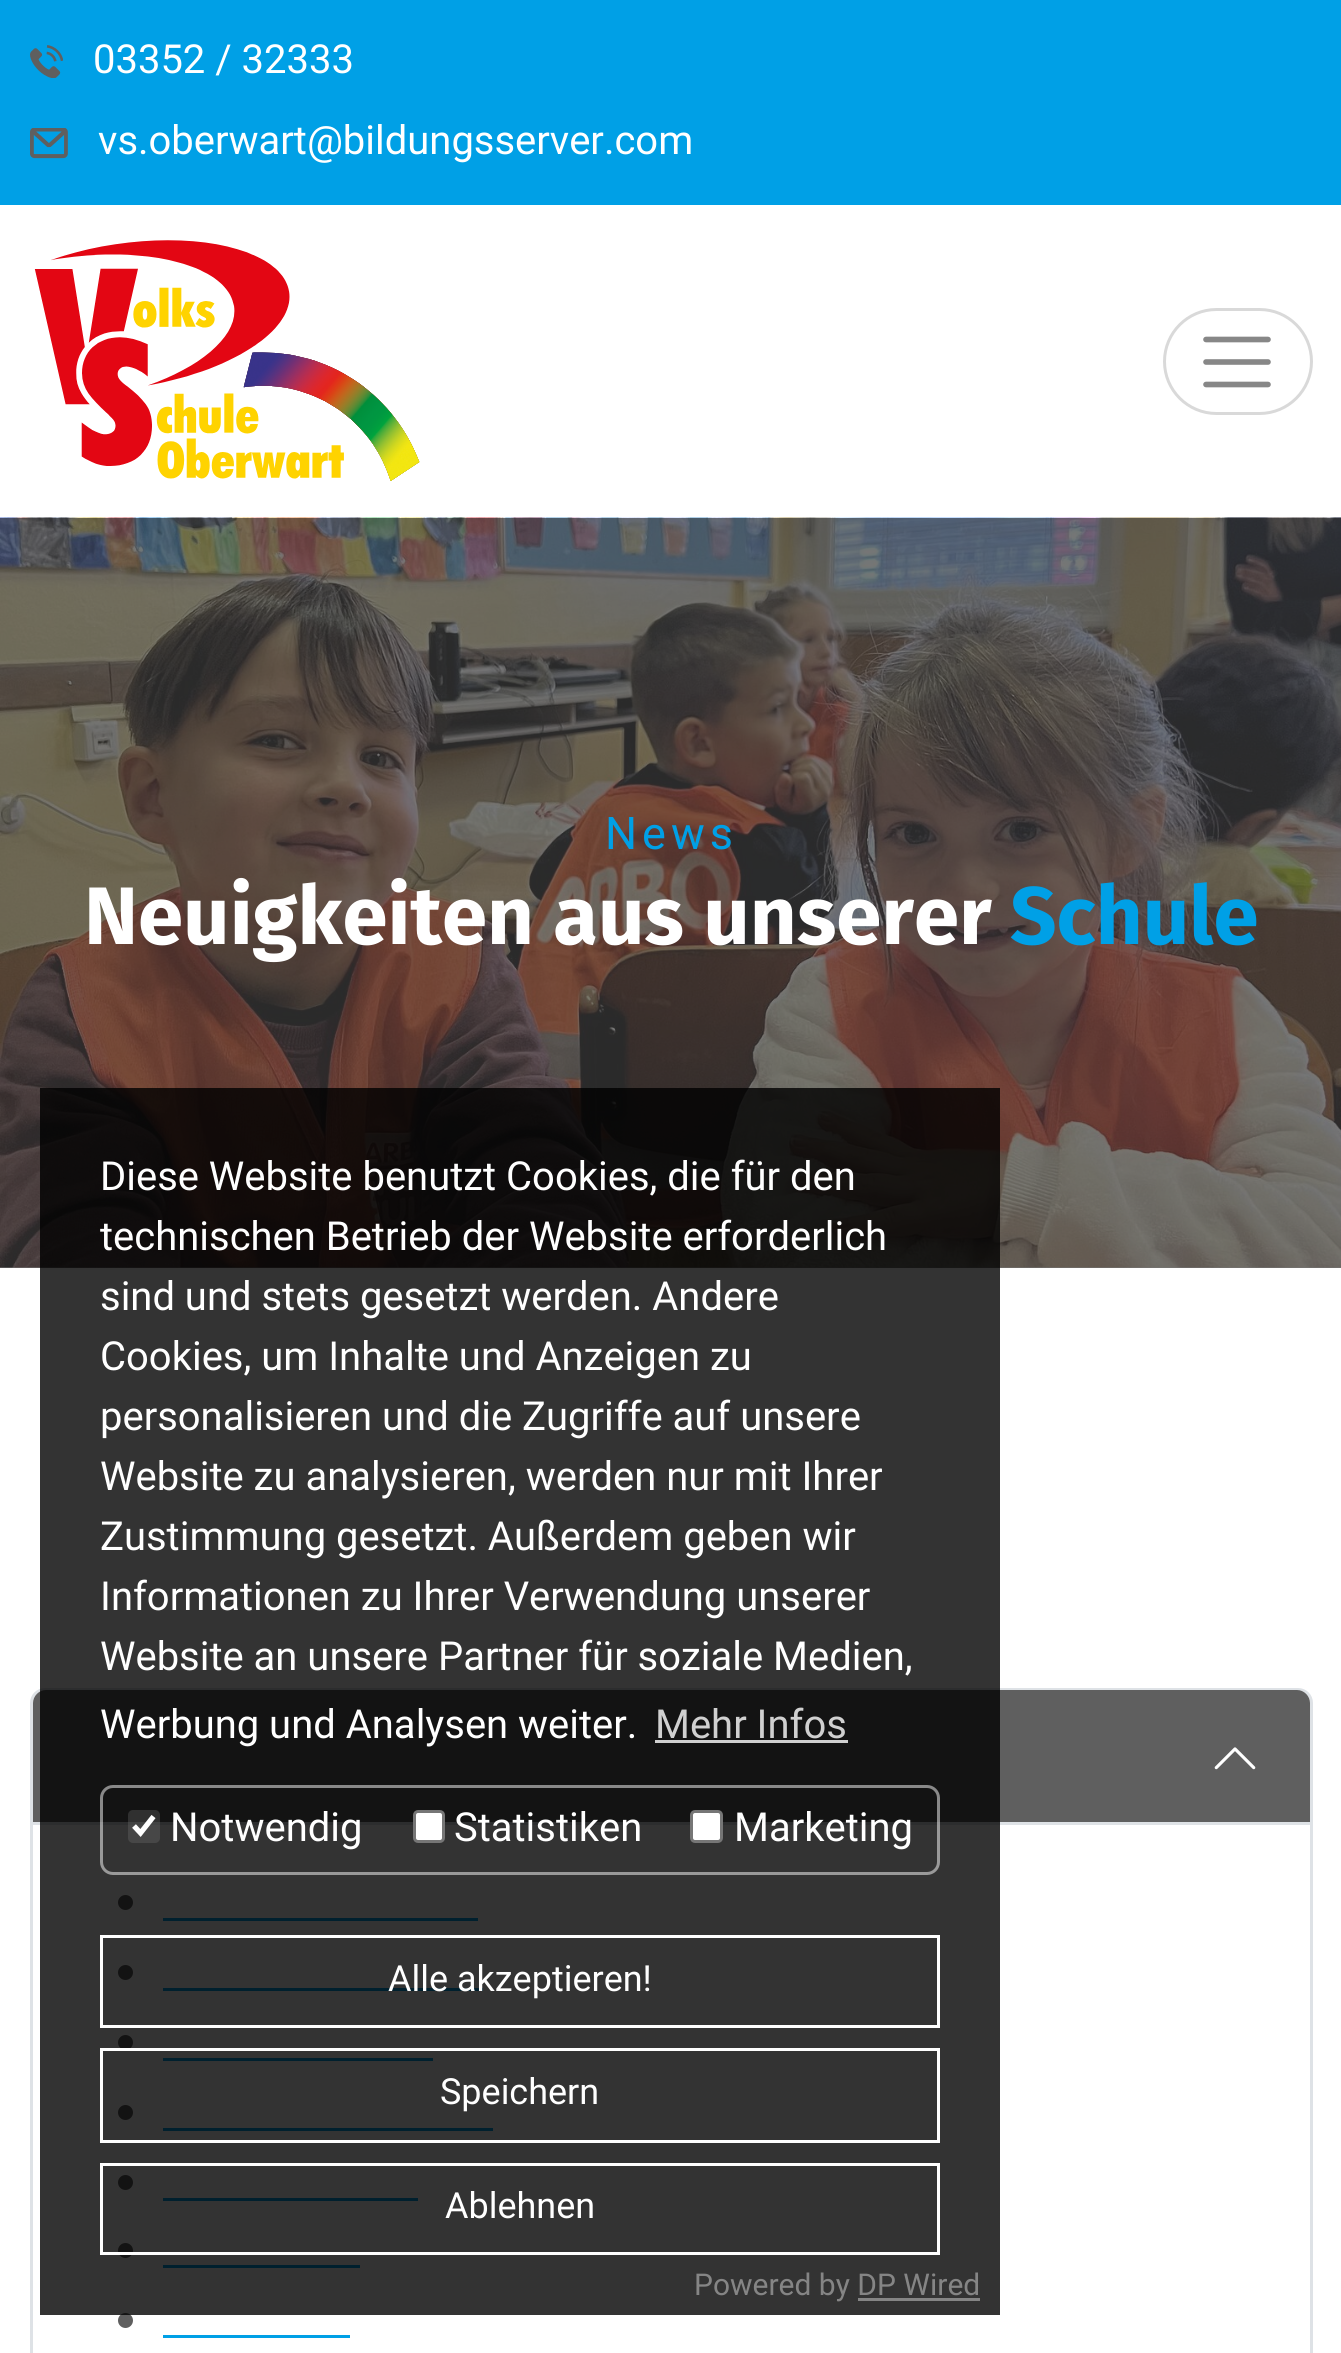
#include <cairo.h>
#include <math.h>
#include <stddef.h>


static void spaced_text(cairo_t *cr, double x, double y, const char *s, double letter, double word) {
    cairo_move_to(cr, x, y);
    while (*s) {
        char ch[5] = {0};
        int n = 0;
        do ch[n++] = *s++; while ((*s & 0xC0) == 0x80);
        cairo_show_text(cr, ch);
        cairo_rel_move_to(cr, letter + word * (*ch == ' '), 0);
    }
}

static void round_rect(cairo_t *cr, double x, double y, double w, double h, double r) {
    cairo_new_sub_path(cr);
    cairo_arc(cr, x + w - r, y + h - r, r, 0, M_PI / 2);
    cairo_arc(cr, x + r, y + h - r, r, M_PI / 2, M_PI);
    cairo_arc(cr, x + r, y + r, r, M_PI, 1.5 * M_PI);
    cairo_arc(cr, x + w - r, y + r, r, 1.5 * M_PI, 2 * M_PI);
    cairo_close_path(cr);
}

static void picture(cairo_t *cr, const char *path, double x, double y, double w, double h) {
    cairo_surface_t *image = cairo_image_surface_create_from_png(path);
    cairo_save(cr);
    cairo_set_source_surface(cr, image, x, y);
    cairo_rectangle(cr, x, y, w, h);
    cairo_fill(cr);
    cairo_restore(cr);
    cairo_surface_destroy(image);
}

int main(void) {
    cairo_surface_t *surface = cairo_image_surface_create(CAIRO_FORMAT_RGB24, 1341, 2353);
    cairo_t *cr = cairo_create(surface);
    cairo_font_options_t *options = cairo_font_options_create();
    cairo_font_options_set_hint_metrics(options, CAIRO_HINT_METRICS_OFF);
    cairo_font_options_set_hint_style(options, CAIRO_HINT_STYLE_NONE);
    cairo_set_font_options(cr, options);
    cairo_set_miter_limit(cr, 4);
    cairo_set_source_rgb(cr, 1, 1, 1);
    cairo_paint(cr);
    cairo_set_source_rgb(cr, 0.467, 0.467, 0.467);
    cairo_rectangle(cr, 0, 1267, 1341, 1);
    cairo_fill(cr);
    cairo_set_source_rgb(cr, 0, 0.627, 0.902);
    cairo_rectangle(cr, 0, 0, 1341, 205);
    cairo_fill(cr);
    picture(cr, "img1.png", 30, 45, 33, 33);
    cairo_select_font_face(cr, "Roboto", CAIRO_FONT_SLANT_NORMAL, CAIRO_FONT_WEIGHT_NORMAL);
    cairo_set_font_size(cr, 40);
    cairo_set_source_rgb(cr, 1, 1, 1);
    cairo_move_to(cr, 93, 73);
    cairo_show_text(cr, "03352 / 32333");
    picture(cr, "img2.png", 30, 128, 38, 31);
    cairo_move_to(cr, 98, 154);
    cairo_show_text(cr, "vs.oberwart@bildungsserver.com");
    picture(cr, "img3.png", 34, 240, 386, 241);
    round_rect(cr, 1164.5, 309.5, 147, 104, 52);
    cairo_set_source_rgb(cr, 0.851, 0.851, 0.851);
    cairo_set_line_width(cr, 3);
    cairo_stroke(cr);
    cairo_new_path(cr);
    cairo_move_to(cr, 1206, 339.5);
    cairo_line_to(cr, 1268, 339.5);
    cairo_move_to(cr, 1206, 362);
    cairo_line_to(cr, 1268, 362);
    cairo_move_to(cr, 1206, 384.5);
    cairo_line_to(cr, 1268, 384.5);
    cairo_set_source_rgb(cr, 0.529, 0.529, 0.529);
    cairo_set_line_width(cr, 5.6);
    cairo_set_line_cap(cr, CAIRO_LINE_CAP_ROUND);
    cairo_stroke(cr);
    picture(cr, "img4.png", 0, 517, 1341, 751);
    cairo_set_font_size(cr, 45);
    cairo_set_source_rgb(cr, 0, 0.627, 0.902);
    spaced_text(cr, 605, 849, "News", 5, 0);
    cairo_select_font_face(cr, "Fira Sans", CAIRO_FONT_SLANT_NORMAL, CAIRO_FONT_WEIGHT_BOLD);
    cairo_set_font_size(cr, 81.5);
    cairo_set_source_rgb(cr, 1, 1, 1);
    cairo_move_to(cr, 84, 944);
    cairo_show_text(cr, "Neuigkeiten aus unserer");
    cairo_set_source_rgb(cr, 0, 0.627, 0.902);
    cairo_move_to(cr, 1010, 944);
    cairo_show_text(cr, "Schule");
    cairo_new_path(cr);
    cairo_move_to(cr, 45, 1689.5);
    cairo_line_to(cr, 1298, 1689.5);
    cairo_curve_to(cr, 1305.5, 1689.5, 1311.5, 1695.5, 1311.5, 1703);
    cairo_line_to(cr, 1311.5, 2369.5);
    cairo_line_to(cr, 31.5, 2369.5);
    cairo_line_to(cr, 31.5, 1703);
    cairo_curve_to(cr, 31.5, 1695.5, 37.5, 1689.5, 45, 1689.5);
    cairo_close_path(cr);
    cairo_set_source_rgb(cr, 0.871, 0.886, 0.902);
    cairo_set_line_width(cr, 3);
    cairo_set_line_cap(cr, CAIRO_LINE_CAP_BUTT);
    cairo_stroke(cr);
    cairo_set_source_rgb(cr, 0.373, 0.373, 0.373);
    cairo_new_path(cr);
    cairo_move_to(cr, 46, 1690);
    cairo_line_to(cr, 1297, 1690);
    cairo_curve_to(cr, 1304, 1690, 1310, 1696, 1310, 1703);
    cairo_line_to(cr, 1310, 1825);
    cairo_line_to(cr, 33, 1825);
    cairo_line_to(cr, 33, 1703);
    cairo_curve_to(cr, 33, 1696, 39, 1690, 46, 1690);
    cairo_close_path(cr);
    cairo_fill(cr);
    cairo_set_source_rgb(cr, 0.871, 0.886, 0.902);
    cairo_rectangle(cr, 33, 1822, 1277, 3);
    cairo_fill(cr);
    picture(cr, "img5.png", 1214, 1747, 42, 23);
    cairo_set_source_rgb(cr, 0.373, 0.373, 0.373);
    cairo_arc(cr, 125.5, 1902.5, 7.5, 0, 2 * M_PI);
    cairo_fill(cr);
    cairo_set_source_rgb(cr, 0, 0.627, 0.902);
    cairo_rectangle(cr, 163, 1918, 315, 3);
    cairo_fill(cr);
    cairo_set_source_rgb(cr, 0.373, 0.373, 0.373);
    cairo_arc(cr, 125.5, 1972.5, 7.5, 0, 2 * M_PI);
    cairo_fill(cr);
    cairo_set_source_rgb(cr, 0, 0.627, 0.902);
    cairo_rectangle(cr, 163, 1988, 320, 3);
    cairo_fill(cr);
    cairo_set_source_rgb(cr, 0.373, 0.373, 0.373);
    cairo_arc(cr, 125.5, 2042.5, 7.5, 0, 2 * M_PI);
    cairo_fill(cr);
    cairo_set_source_rgb(cr, 0, 0.627, 0.902);
    cairo_rectangle(cr, 163, 2058, 270, 3);
    cairo_fill(cr);
    cairo_set_source_rgb(cr, 0.373, 0.373, 0.373);
    cairo_arc(cr, 125.5, 2112.5, 7.5, 0, 2 * M_PI);
    cairo_fill(cr);
    cairo_set_source_rgb(cr, 0, 0.627, 0.902);
    cairo_rectangle(cr, 163, 2128, 330, 3);
    cairo_fill(cr);
    cairo_set_source_rgb(cr, 0.373, 0.373, 0.373);
    cairo_arc(cr, 125.5, 2182.5, 7.5, 0, 2 * M_PI);
    cairo_fill(cr);
    cairo_set_source_rgb(cr, 0, 0.627, 0.902);
    cairo_rectangle(cr, 163, 2198, 255, 3);
    cairo_fill(cr);
    cairo_set_source_rgb(cr, 0.373, 0.373, 0.373);
    cairo_arc(cr, 125.5, 2250.5, 7.5, 0, 2 * M_PI);
    cairo_fill(cr);
    cairo_set_source_rgb(cr, 0, 0.627, 0.902);
    cairo_rectangle(cr, 163, 2265, 197, 3);
    cairo_fill(cr);
    cairo_set_source_rgb(cr, 0.373, 0.373, 0.373);
    cairo_arc(cr, 125.5, 2320.5, 7.5, 0, 2 * M_PI);
    cairo_fill(cr);
    cairo_set_source_rgb(cr, 0, 0.627, 0.902);
    cairo_rectangle(cr, 163, 2335, 187, 3);
    cairo_fill(cr);
    cairo_set_source_rgba(cr, 0, 0, 0, 0.8);
    cairo_rectangle(cr, 40, 1088, 960, 1227);
    cairo_fill(cr);
    cairo_select_font_face(cr, "Roboto", CAIRO_FONT_SLANT_NORMAL, CAIRO_FONT_WEIGHT_NORMAL);
    cairo_set_font_size(cr, 40);
    cairo_set_source_rgb(cr, 1, 1, 1);
    cairo_move_to(cr, 100, 1190);
    cairo_show_text(cr, "Diese Website benutzt Cookies, die für den");
    cairo_move_to(cr, 100, 1250);
    cairo_show_text(cr, "technischen Betrieb der Website erforderlich");
    cairo_move_to(cr, 100, 1310);
    cairo_show_text(cr, "sind und stets gesetzt werden. Andere");
    cairo_move_to(cr, 100, 1370);
    cairo_show_text(cr, "Cookies, um Inhalte und Anzeigen zu");
    cairo_move_to(cr, 100, 1430);
    cairo_show_text(cr, "personalisieren und die Zugriffe auf unsere");
    cairo_move_to(cr, 100, 1490);
    cairo_show_text(cr, "Website zu analysieren, werden nur mit Ihrer");
    cairo_move_to(cr, 100, 1550);
    cairo_show_text(cr, "Zustimmung gesetzt. Außerdem geben wir");
    cairo_move_to(cr, 100, 1610);
    cairo_show_text(cr, "Informationen zu Ihrer Verwendung unserer");
    cairo_move_to(cr, 100, 1670);
    cairo_show_text(cr, "Website an unsere Partner für soziale Medien,");
    cairo_move_to(cr, 100, 1738);
    cairo_show_text(cr, "Werbung und Analysen weiter.");
    cairo_set_source_rgb(cr, 0.816, 0.816, 0.816);
    cairo_move_to(cr, 655, 1738);
    cairo_show_text(cr, "Mehr Infos");
    cairo_rectangle(cr, 655, 1740, 193, 3);
    cairo_fill(cr);
    round_rect(cr, 101.5, 1786.5, 837, 87, 11.5);
    cairo_set_source_rgba(cr, 1, 1, 1, 0.5);
    cairo_stroke(cr);
    cairo_set_source_rgba(cr, 0.463, 0.463, 0.463, 0.3);
    round_rect(cr, 128, 1810, 32, 33, 5);
    cairo_fill(cr);
    cairo_new_path(cr);
    cairo_move_to(cr, 134, 1826);
    cairo_line_to(cr, 140.5, 1833);
    cairo_line_to(cr, 153.5, 1816.5);
    cairo_set_source_rgb(cr, 1, 1, 1);
    cairo_set_line_width(cr, 5.2);
    cairo_stroke(cr);
    cairo_move_to(cr, 170, 1841);
    cairo_show_text(cr, "Notwendig");
    round_rect(cr, 414.5, 1811.5, 29, 30, 3.5);
    cairo_fill_preserve(cr);
    cairo_set_source_rgb(cr, 0.463, 0.463, 0.463);
    cairo_set_line_width(cr, 3);
    cairo_stroke(cr);
    cairo_set_source_rgb(cr, 1, 1, 1);
    cairo_move_to(cr, 454, 1841);
    cairo_show_text(cr, "Statistiken");
    round_rect(cr, 691.5, 1811.5, 30, 30, 3.5);
    cairo_fill_preserve(cr);
    cairo_set_source_rgb(cr, 0.463, 0.463, 0.463);
    cairo_stroke(cr);
    cairo_set_source_rgb(cr, 1, 1, 1);
    cairo_move_to(cr, 734, 1841);
    cairo_show_text(cr, "Marketing");
    cairo_rectangle(cr, 101.5, 1936.5, 837, 90);
    cairo_stroke(cr);
    cairo_set_font_size(cr, 36);
    cairo_move_to(cr, 388, 1991);
    cairo_show_text(cr, "Alle akzeptieren!");
    cairo_rectangle(cr, 101.5, 2049.5, 837, 92);
    cairo_stroke(cr);
    cairo_move_to(cr, 440, 2104);
    cairo_show_text(cr, "Speichern");
    cairo_rectangle(cr, 101.5, 2164.5, 837, 89);
    cairo_stroke(cr);
    cairo_move_to(cr, 445, 2218);
    cairo_show_text(cr, "Ablehnen");
    cairo_set_font_size(cr, 30);
    cairo_set_source_rgb(cr, 0.522, 0.522, 0.522);
    cairo_move_to(cr, 694, 2295);
    cairo_show_text(cr, "Powered by DP Wired");
    cairo_rectangle(cr, 858, 2298, 122, 3);
    cairo_fill(cr);
    cairo_surface_write_to_png(surface, "page.png");
    cairo_font_options_destroy(options);
    cairo_destroy(cr);
    cairo_surface_destroy(surface);
    return 0;
}
